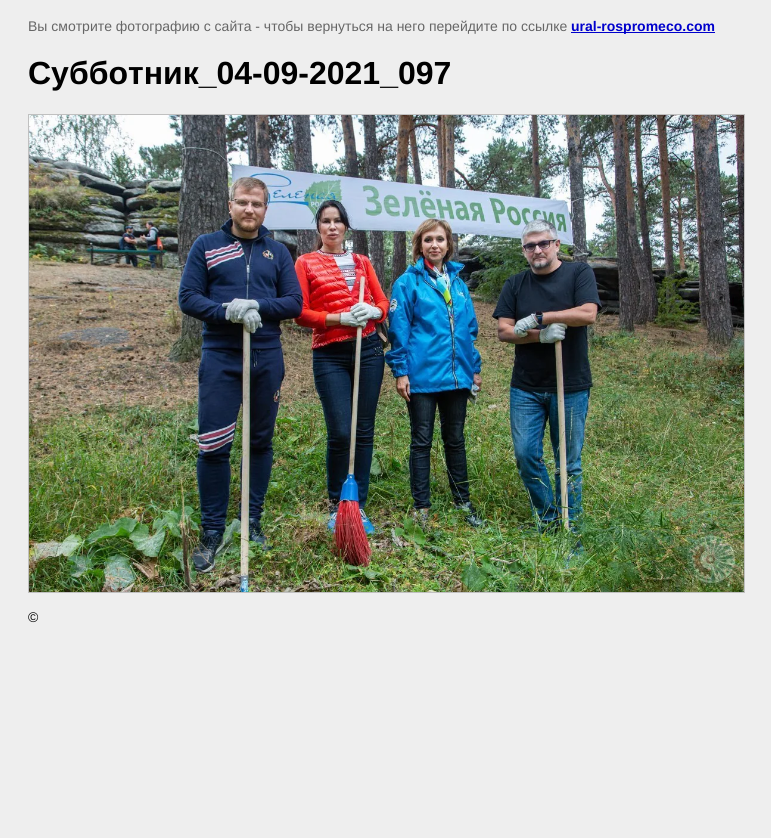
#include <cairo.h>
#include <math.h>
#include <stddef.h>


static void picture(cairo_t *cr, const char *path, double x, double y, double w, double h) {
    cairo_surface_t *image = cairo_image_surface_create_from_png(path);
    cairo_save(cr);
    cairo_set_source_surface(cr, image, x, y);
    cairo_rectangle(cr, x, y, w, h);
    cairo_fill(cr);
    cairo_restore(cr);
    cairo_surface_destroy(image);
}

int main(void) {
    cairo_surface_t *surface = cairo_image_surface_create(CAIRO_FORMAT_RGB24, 771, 838);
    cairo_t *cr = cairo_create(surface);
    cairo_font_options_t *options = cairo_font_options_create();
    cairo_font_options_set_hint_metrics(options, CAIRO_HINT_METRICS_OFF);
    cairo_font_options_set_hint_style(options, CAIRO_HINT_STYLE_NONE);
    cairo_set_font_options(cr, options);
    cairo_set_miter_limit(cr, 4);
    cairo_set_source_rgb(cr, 0.933, 0.933, 0.933);
    cairo_paint(cr);
    cairo_select_font_face(cr, "Liberation Sans", CAIRO_FONT_SLANT_NORMAL, CAIRO_FONT_WEIGHT_NORMAL);
    cairo_set_font_size(cr, 14);
    cairo_set_source_rgb(cr, 0.4, 0.4, 0.4);
    cairo_move_to(cr, 28, 31);
    cairo_show_text(cr, "Вы смотрите фотографию с сайта - чтобы вернуться на него перейдите по ссылке");
    cairo_set_source_rgb(cr, 0, 0, 0.8);
    cairo_rectangle(cr, 571, 32, 144, 1);
    cairo_fill(cr);
    cairo_select_font_face(cr, "Liberation Sans", CAIRO_FONT_SLANT_NORMAL, CAIRO_FONT_WEIGHT_BOLD);
    cairo_move_to(cr, 571, 31);
    cairo_show_text(cr, "ural-rospromeco.com");
    cairo_set_font_size(cr, 32);
    cairo_set_source_rgb(cr, 0, 0, 0);
    cairo_move_to(cr, 28, 84);
    cairo_show_text(cr, "Субботник_04-09-2021_097");
    cairo_rectangle(cr, 28.5, 114.5, 716, 478);
    cairo_set_source_rgb(cr, 0.753, 0.753, 0.753);
    cairo_set_line_width(cr, 1);
    cairo_stroke(cr);
    picture(cr, "img1.png", 29, 115, 715, 477);
    cairo_select_font_face(cr, "Liberation Sans", CAIRO_FONT_SLANT_NORMAL, CAIRO_FONT_WEIGHT_NORMAL);
    cairo_set_font_size(cr, 14);
    cairo_set_source_rgb(cr, 0, 0, 0);
    cairo_move_to(cr, 28, 622);
    cairo_show_text(cr, "©");
    cairo_surface_write_to_png(surface, "page.png");
    cairo_font_options_destroy(options);
    cairo_destroy(cr);
    cairo_surface_destroy(surface);
    return 0;
}
